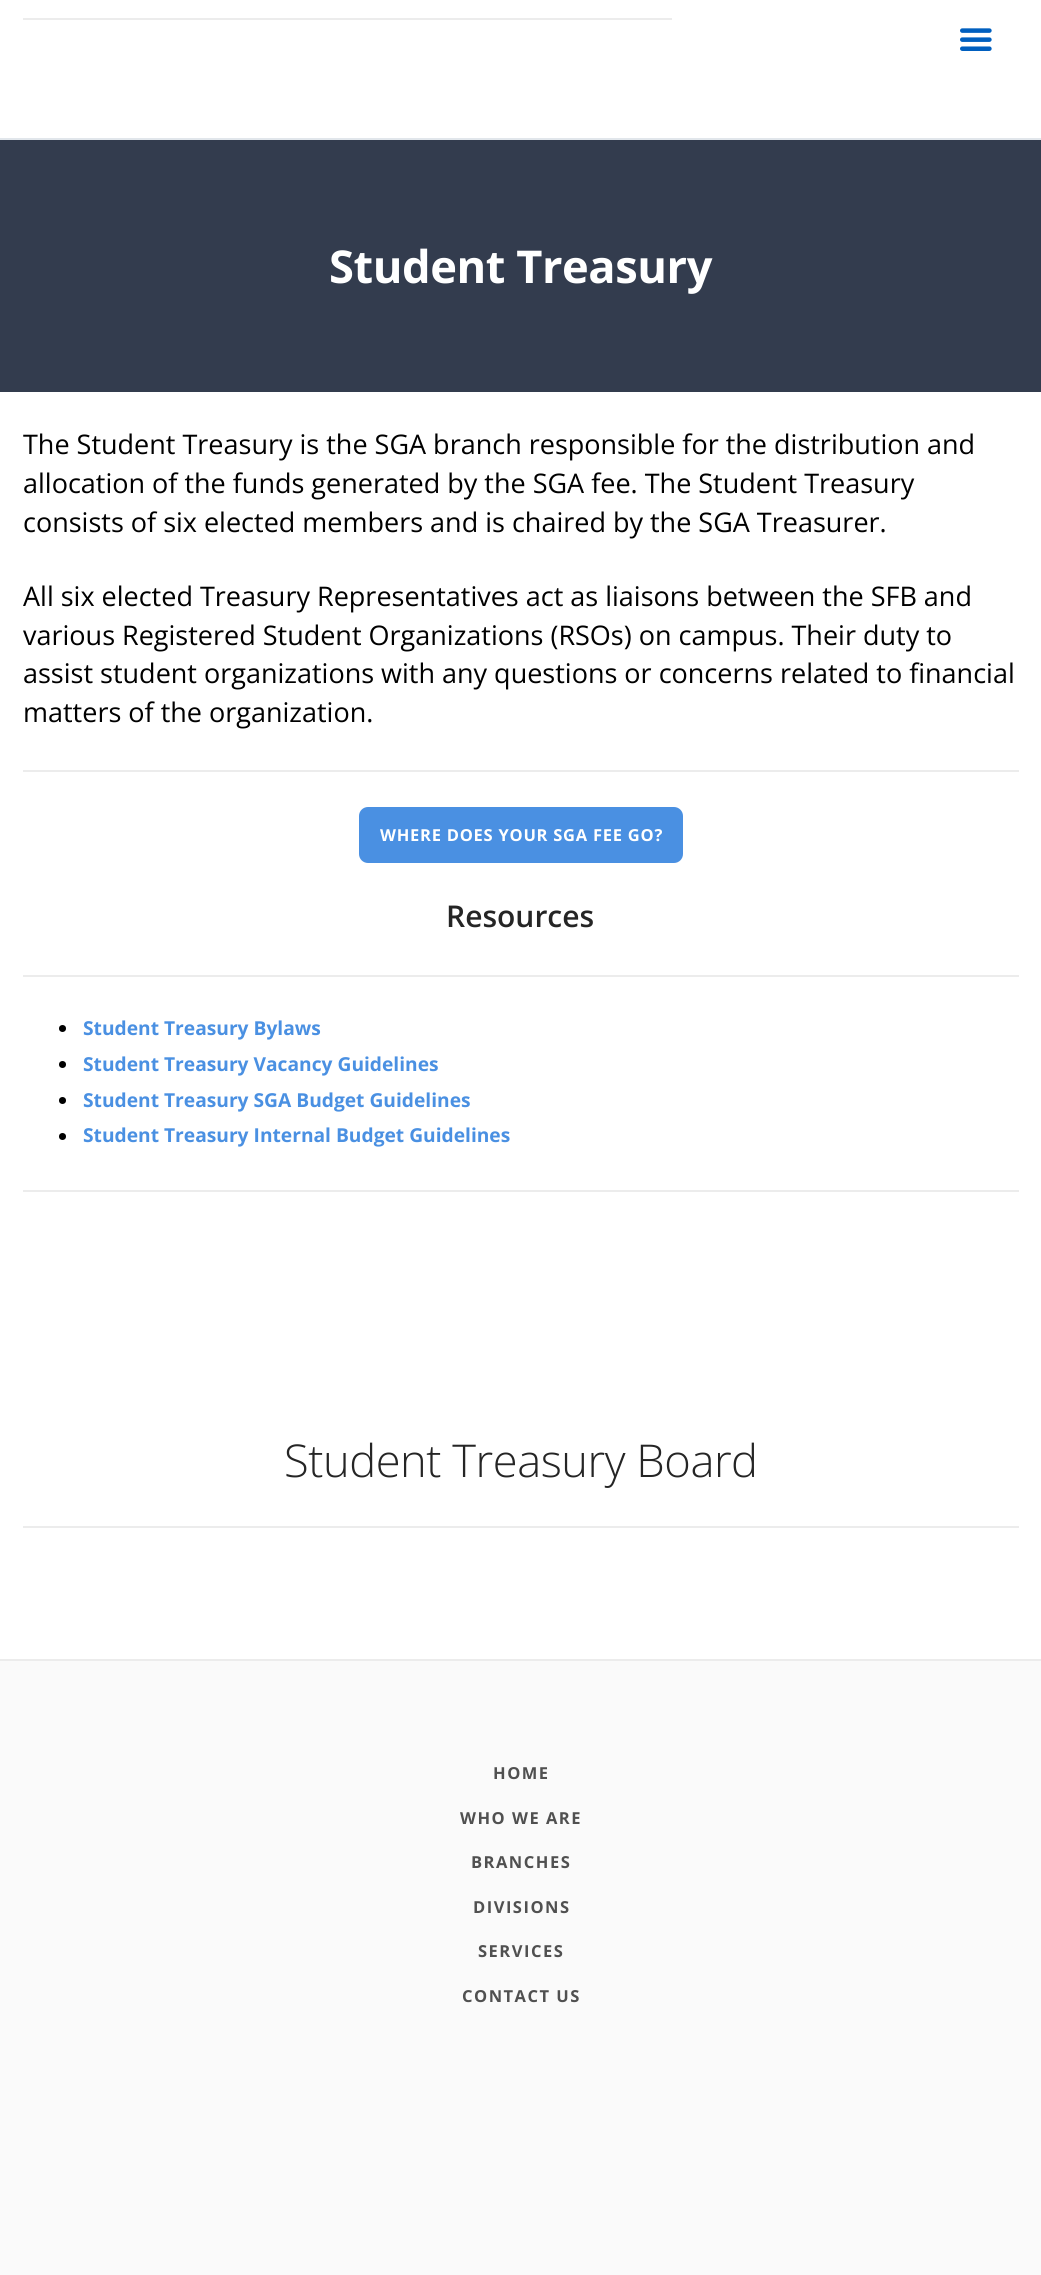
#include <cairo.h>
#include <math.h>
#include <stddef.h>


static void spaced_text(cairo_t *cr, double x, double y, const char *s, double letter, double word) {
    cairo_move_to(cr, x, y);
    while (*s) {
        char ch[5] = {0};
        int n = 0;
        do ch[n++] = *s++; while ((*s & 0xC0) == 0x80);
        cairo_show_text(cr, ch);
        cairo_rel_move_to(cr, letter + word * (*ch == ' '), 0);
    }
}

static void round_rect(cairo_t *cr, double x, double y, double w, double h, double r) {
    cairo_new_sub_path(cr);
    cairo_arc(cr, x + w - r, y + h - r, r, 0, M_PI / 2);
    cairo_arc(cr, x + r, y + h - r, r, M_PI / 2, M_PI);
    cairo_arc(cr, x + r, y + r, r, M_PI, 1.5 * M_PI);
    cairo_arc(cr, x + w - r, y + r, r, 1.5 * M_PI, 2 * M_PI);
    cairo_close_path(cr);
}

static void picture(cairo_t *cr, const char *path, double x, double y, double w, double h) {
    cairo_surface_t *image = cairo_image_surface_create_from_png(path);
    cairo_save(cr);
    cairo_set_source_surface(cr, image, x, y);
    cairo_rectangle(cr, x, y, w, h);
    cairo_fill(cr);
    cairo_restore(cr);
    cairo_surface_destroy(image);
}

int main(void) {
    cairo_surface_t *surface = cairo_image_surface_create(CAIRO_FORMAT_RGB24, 1041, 2275);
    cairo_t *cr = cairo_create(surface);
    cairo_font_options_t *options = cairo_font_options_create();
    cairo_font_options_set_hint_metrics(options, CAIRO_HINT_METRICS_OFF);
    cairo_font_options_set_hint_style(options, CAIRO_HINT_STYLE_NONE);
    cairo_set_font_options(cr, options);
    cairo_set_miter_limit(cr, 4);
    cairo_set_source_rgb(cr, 1, 1, 1);
    cairo_paint(cr);
    cairo_set_source_rgb(cr, 0.882, 0.902, 0.918);
    cairo_rectangle(cr, 0, 138, 1041, 2);
    cairo_fill(cr);
    cairo_set_source_rgb(cr, 0.925, 0.925, 0.925);
    cairo_rectangle(cr, 23, 18, 649, 2);
    cairo_fill(cr);
    picture(cr, "img1.png", 960, 28, 32, 23);
    cairo_set_source_rgb(cr, 0.2, 0.235, 0.306);
    cairo_rectangle(cr, 0, 140, 1041, 252);
    cairo_fill(cr);
    cairo_select_font_face(cr, "Open Sans", CAIRO_FONT_SLANT_NORMAL, CAIRO_FONT_WEIGHT_BOLD);
    cairo_set_font_size(cr, 45.25);
    cairo_set_source_rgb(cr, 1, 1, 1);
    spaced_text(cr, 329, 283, "Student Treasury", -0.45, 0);
    cairo_select_font_face(cr, "Open Sans", CAIRO_FONT_SLANT_NORMAL, CAIRO_FONT_WEIGHT_NORMAL);
    cairo_set_font_size(cr, 27);
    cairo_set_source_rgb(cr, 0, 0, 0);
    cairo_move_to(cr, 23, 454);
    cairo_show_text(cr, "The Student Treasury is the SGA branch responsible for the distribution and");
    cairo_move_to(cr, 23, 493);
    cairo_show_text(cr, "allocation of the funds generated by the SGA fee. The Student Treasury");
    cairo_move_to(cr, 23, 532);
    cairo_show_text(cr, "consists of six elected members and is chaired by the SGA Treasurer.");
    cairo_move_to(cr, 23, 606);
    cairo_show_text(cr, "All six elected Treasury Representatives act as liaisons between the SFB and");
    cairo_move_to(cr, 23, 645);
    cairo_show_text(cr, "various Registered Student Organizations (RSOs) on campus. Their duty to");
    cairo_move_to(cr, 23, 683);
    cairo_show_text(cr, "assist student organizations with any questions or concerns related to financial");
    cairo_move_to(cr, 23, 722);
    cairo_show_text(cr, "matters of the organization.");
    cairo_set_source_rgb(cr, 0.925, 0.925, 0.925);
    cairo_rectangle(cr, 23, 770, 996, 2);
    cairo_fill(cr);
    cairo_set_source_rgb(cr, 0.29, 0.565, 0.886);
    round_rect(cr, 360, 808, 322, 54, 8);
    cairo_fill_preserve(cr);
    cairo_stroke(cr);
    cairo_select_font_face(cr, "Open Sans", CAIRO_FONT_SLANT_NORMAL, CAIRO_FONT_WEIGHT_BOLD);
    cairo_set_font_size(cr, 16.5);
    cairo_set_source_rgb(cr, 1, 1, 1);
    spaced_text(cr, 380, 841, "WHERE DOES YOUR SGA FEE GO?", 0.75, 0);
    cairo_select_font_face(cr, "Open Sans SemiBold", CAIRO_FONT_SLANT_NORMAL, CAIRO_FONT_WEIGHT_NORMAL);
    cairo_set_font_size(cr, 30);
    cairo_set_source_rgb(cr, 0.145, 0.145, 0.145);
    cairo_move_to(cr, 446, 927);
    cairo_show_text(cr, "Resources");
    cairo_set_source_rgb(cr, 0.925, 0.925, 0.925);
    cairo_rectangle(cr, 23, 975, 996, 2);
    cairo_fill(cr);
    cairo_set_source_rgb(cr, 0, 0, 0);
    cairo_arc(cr, 62.5, 1028.5, 3.5, 0, 2 * M_PI);
    cairo_fill(cr);
    cairo_select_font_face(cr, "Open Sans", CAIRO_FONT_SLANT_NORMAL, CAIRO_FONT_WEIGHT_BOLD);
    cairo_set_font_size(cr, 19.2);
    cairo_set_source_rgb(cr, 0.29, 0.565, 0.886);
    cairo_move_to(cr, 83, 1035);
    cairo_show_text(cr, "Student Treasury Bylaws");
    cairo_set_source_rgb(cr, 0, 0, 0);
    cairo_new_path(cr);
    cairo_arc(cr, 62.5, 1064.5, 3.5, 0, 2 * M_PI);
    cairo_fill(cr);
    cairo_set_source_rgb(cr, 0.29, 0.565, 0.886);
    cairo_move_to(cr, 83, 1071);
    cairo_show_text(cr, "Student Treasury Vacancy Guidelines");
    cairo_set_source_rgb(cr, 0, 0, 0);
    cairo_new_path(cr);
    cairo_arc(cr, 62.5, 1100.5, 3.5, 0, 2 * M_PI);
    cairo_fill(cr);
    cairo_set_source_rgb(cr, 0.29, 0.565, 0.886);
    cairo_move_to(cr, 83, 1107);
    cairo_show_text(cr, "Student Treasury SGA Budget Guidelines");
    cairo_set_source_rgb(cr, 0, 0, 0);
    cairo_new_path(cr);
    cairo_arc(cr, 62.5, 1136.5, 3.5, 0, 2 * M_PI);
    cairo_fill(cr);
    cairo_set_source_rgb(cr, 0.29, 0.565, 0.886);
    cairo_move_to(cr, 83, 1142);
    cairo_show_text(cr, "Student Treasury Internal Budget Guidelines");
    cairo_set_source_rgb(cr, 0.925, 0.925, 0.925);
    cairo_rectangle(cr, 23, 1190, 996, 2);
    cairo_fill(cr);
    cairo_select_font_face(cr, "Open Sans Light", CAIRO_FONT_SLANT_NORMAL, CAIRO_FONT_WEIGHT_NORMAL);
    cairo_set_font_size(cr, 45.25);
    cairo_set_source_rgb(cr, 0.145, 0.145, 0.145);
    spaced_text(cr, 284, 1477, "Student Treasury Board", -0.45, 0);
    cairo_set_source_rgb(cr, 0.925, 0.925, 0.925);
    cairo_rectangle(cr, 23, 1526, 996, 2);
    cairo_fill(cr);
    cairo_set_source_rgb(cr, 0.98, 0.98, 0.98);
    cairo_rectangle(cr, 0, 1661, 1041, 614);
    cairo_fill(cr);
    cairo_set_source_rgb(cr, 0.922, 0.922, 0.922);
    cairo_rectangle(cr, 0, 1659, 1041, 2);
    cairo_fill(cr);
    cairo_select_font_face(cr, "Open Sans", CAIRO_FONT_SLANT_NORMAL, CAIRO_FONT_WEIGHT_BOLD);
    cairo_set_font_size(cr, 16.5);
    cairo_set_source_rgb(cr, 0.314, 0.314, 0.314);
    spaced_text(cr, 493, 1779, "HOME", 1.5, 0);
    spaced_text(cr, 460, 1824, "WHO WE ARE", 1.5, 0);
    spaced_text(cr, 471, 1868, "BRANCHES", 1.5, 0);
    spaced_text(cr, 473, 1913, "DIVISIONS", 1.5, 0);
    spaced_text(cr, 478, 1957, "SERVICES", 1.5, 0);
    spaced_text(cr, 462, 2002, "CONTACT US", 1.5, 0);
    cairo_surface_write_to_png(surface, "page.png");
    cairo_font_options_destroy(options);
    cairo_destroy(cr);
    cairo_surface_destroy(surface);
    return 0;
}
